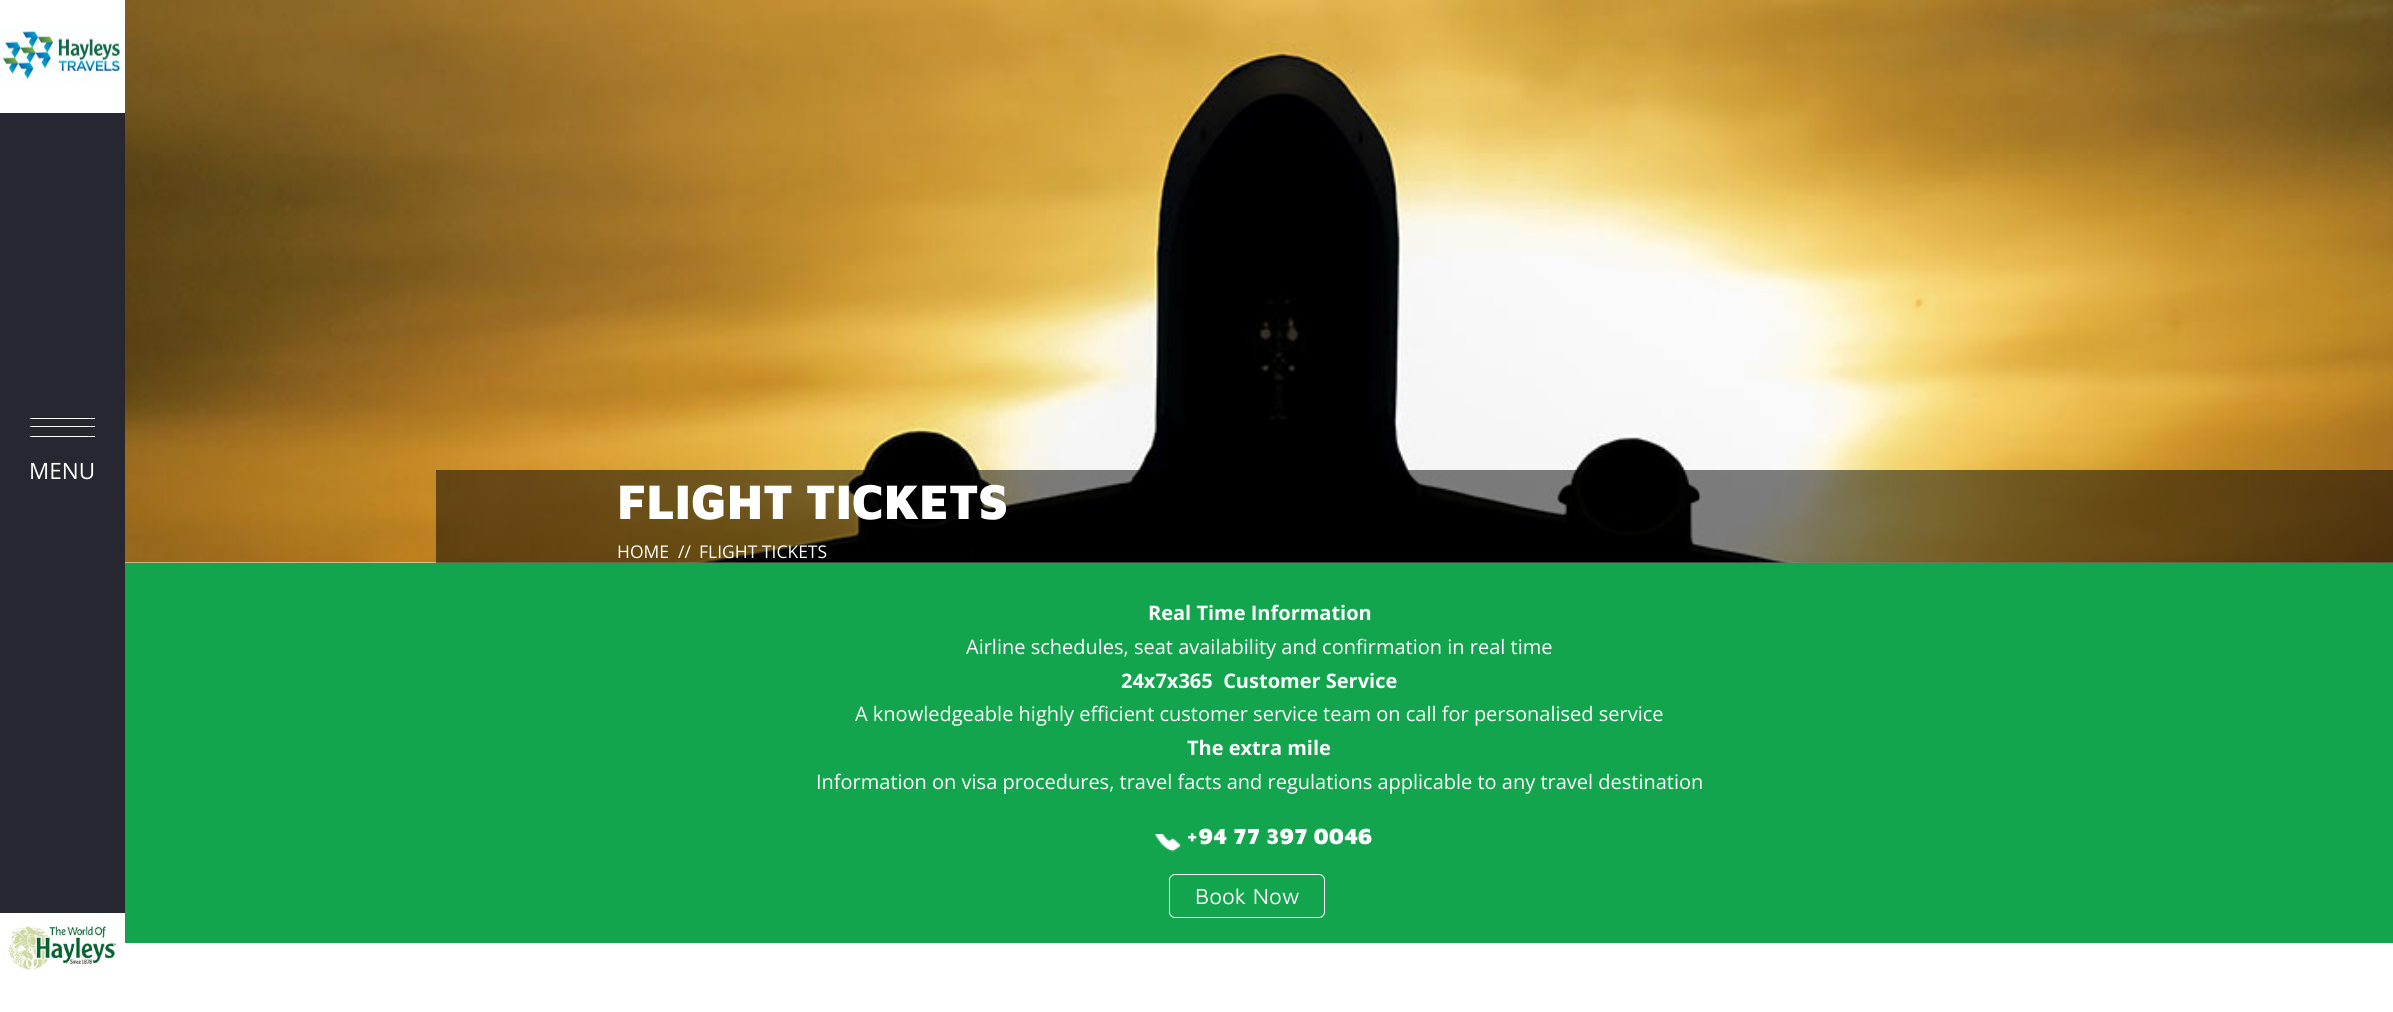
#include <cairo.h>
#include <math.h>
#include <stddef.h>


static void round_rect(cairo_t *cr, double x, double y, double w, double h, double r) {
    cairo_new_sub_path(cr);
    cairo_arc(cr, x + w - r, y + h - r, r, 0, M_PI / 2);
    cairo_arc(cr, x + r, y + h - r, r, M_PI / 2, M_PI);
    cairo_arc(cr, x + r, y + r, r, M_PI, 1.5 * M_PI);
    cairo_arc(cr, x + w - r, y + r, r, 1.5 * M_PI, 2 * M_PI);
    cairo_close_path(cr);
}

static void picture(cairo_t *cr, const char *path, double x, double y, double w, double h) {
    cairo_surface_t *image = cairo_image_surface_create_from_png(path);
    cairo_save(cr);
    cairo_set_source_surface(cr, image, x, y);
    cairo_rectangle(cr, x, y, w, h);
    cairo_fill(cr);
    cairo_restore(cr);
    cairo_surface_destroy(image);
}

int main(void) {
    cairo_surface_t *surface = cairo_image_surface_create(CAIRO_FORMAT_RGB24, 2393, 1012);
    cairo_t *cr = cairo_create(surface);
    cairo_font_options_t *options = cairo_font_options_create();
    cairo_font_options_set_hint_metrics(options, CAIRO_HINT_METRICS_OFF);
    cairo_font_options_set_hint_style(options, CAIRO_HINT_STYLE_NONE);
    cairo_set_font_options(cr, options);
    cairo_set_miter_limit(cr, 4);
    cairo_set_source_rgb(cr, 1, 1, 1);
    cairo_paint(cr);
    picture(cr, "img1.png", 0, 26, 121, 56);
    cairo_set_source_rgb(cr, 0.153, 0.153, 0.192);
    cairo_rectangle(cr, 0, 113, 125, 800);
    cairo_fill(cr);
    cairo_set_source_rgb(cr, 1, 1, 1);
    cairo_rectangle(cr, 30, 418, 65, 1);
    cairo_fill(cr);
    cairo_rectangle(cr, 30, 426, 65, 1);
    cairo_fill(cr);
    cairo_rectangle(cr, 30, 436, 65, 1);
    cairo_fill(cr);
    cairo_select_font_face(cr, "Open Sans", CAIRO_FONT_SLANT_NORMAL, CAIRO_FONT_WEIGHT_NORMAL);
    cairo_set_font_size(cr, 22.5);
    cairo_move_to(cr, 29, 479);
    cairo_show_text(cr, "MENU");
    picture(cr, "img2.png", 7, 925, 111, 45);
    picture(cr, "img3.png", 125, 0, 2268, 563);
    cairo_set_source_rgba(cr, 0, 0, 0, 0.5);
    cairo_rectangle(cr, 436, 470, 1957, 93);
    cairo_fill(cr);
    cairo_select_font_face(cr, "Maven Pro Black", CAIRO_FONT_SLANT_NORMAL, CAIRO_FONT_WEIGHT_NORMAL);
    cairo_set_font_size(cr, 50);
    cairo_set_source_rgb(cr, 1, 1, 1);
    cairo_move_to(cr, 617, 519);
    cairo_show_text(cr, "FLIGHT TICKETS");
    cairo_select_font_face(cr, "Open Sans", CAIRO_FONT_SLANT_NORMAL, CAIRO_FONT_WEIGHT_NORMAL);
    cairo_set_font_size(cr, 17.5);
    cairo_move_to(cr, 617, 558);
    cairo_show_text(cr, "HOME");
    cairo_move_to(cr, 678, 558);
    cairo_show_text(cr, "//");
    cairo_move_to(cr, 699, 558);
    cairo_show_text(cr, "FLIGHT TICKETS");
    cairo_set_source_rgb(cr, 0.071, 0.647, 0.302);
    cairo_rectangle(cr, 125, 563, 2268, 380);
    cairo_fill(cr);
    cairo_select_font_face(cr, "Open Sans", CAIRO_FONT_SLANT_NORMAL, CAIRO_FONT_WEIGHT_BOLD);
    cairo_set_font_size(cr, 20);
    cairo_set_source_rgb(cr, 1, 1, 1);
    cairo_move_to(cr, 1148, 620);
    cairo_show_text(cr, "Real Time Information");
    cairo_select_font_face(cr, "Open Sans", CAIRO_FONT_SLANT_NORMAL, CAIRO_FONT_WEIGHT_NORMAL);
    cairo_move_to(cr, 966, 654);
    cairo_show_text(cr, "Airline schedules, seat availability and confirmation in real time");
    cairo_select_font_face(cr, "Open Sans", CAIRO_FONT_SLANT_NORMAL, CAIRO_FONT_WEIGHT_BOLD);
    cairo_move_to(cr, 1121, 688);
    cairo_show_text(cr, "24x7x365  Customer Service");
    cairo_select_font_face(cr, "Open Sans", CAIRO_FONT_SLANT_NORMAL, CAIRO_FONT_WEIGHT_NORMAL);
    cairo_move_to(cr, 855, 721);
    cairo_show_text(cr, "A knowledgeable highly efficient customer service team on call for personalised service");
    cairo_select_font_face(cr, "Open Sans", CAIRO_FONT_SLANT_NORMAL, CAIRO_FONT_WEIGHT_BOLD);
    cairo_move_to(cr, 1187, 755);
    cairo_show_text(cr, "The extra mile");
    cairo_select_font_face(cr, "Open Sans", CAIRO_FONT_SLANT_NORMAL, CAIRO_FONT_WEIGHT_NORMAL);
    cairo_move_to(cr, 816, 789);
    cairo_show_text(cr, "Information on visa procedures, travel facts and regulations applicable to any travel destination");
    picture(cr, "img4.png", 1154, 834, 27, 18);
    cairo_select_font_face(cr, "Maven Pro Black", CAIRO_FONT_SLANT_NORMAL, CAIRO_FONT_WEIGHT_NORMAL);
    cairo_set_font_size(cr, 22.5);
    cairo_move_to(cr, 1186, 844);
    cairo_show_text(cr, "+94 77 397 0046");
    round_rect(cr, 1169.5, 874.5, 155, 43, 5.5);
    cairo_set_line_width(cr, 1);
    cairo_stroke(cr);
    cairo_select_font_face(cr, "Maven Pro", CAIRO_FONT_SLANT_NORMAL, CAIRO_FONT_WEIGHT_NORMAL);
    cairo_move_to(cr, 1195, 904);
    cairo_show_text(cr, "Book Now");
    cairo_surface_write_to_png(surface, "page.png");
    cairo_font_options_destroy(options);
    cairo_destroy(cr);
    cairo_surface_destroy(surface);
    return 0;
}
